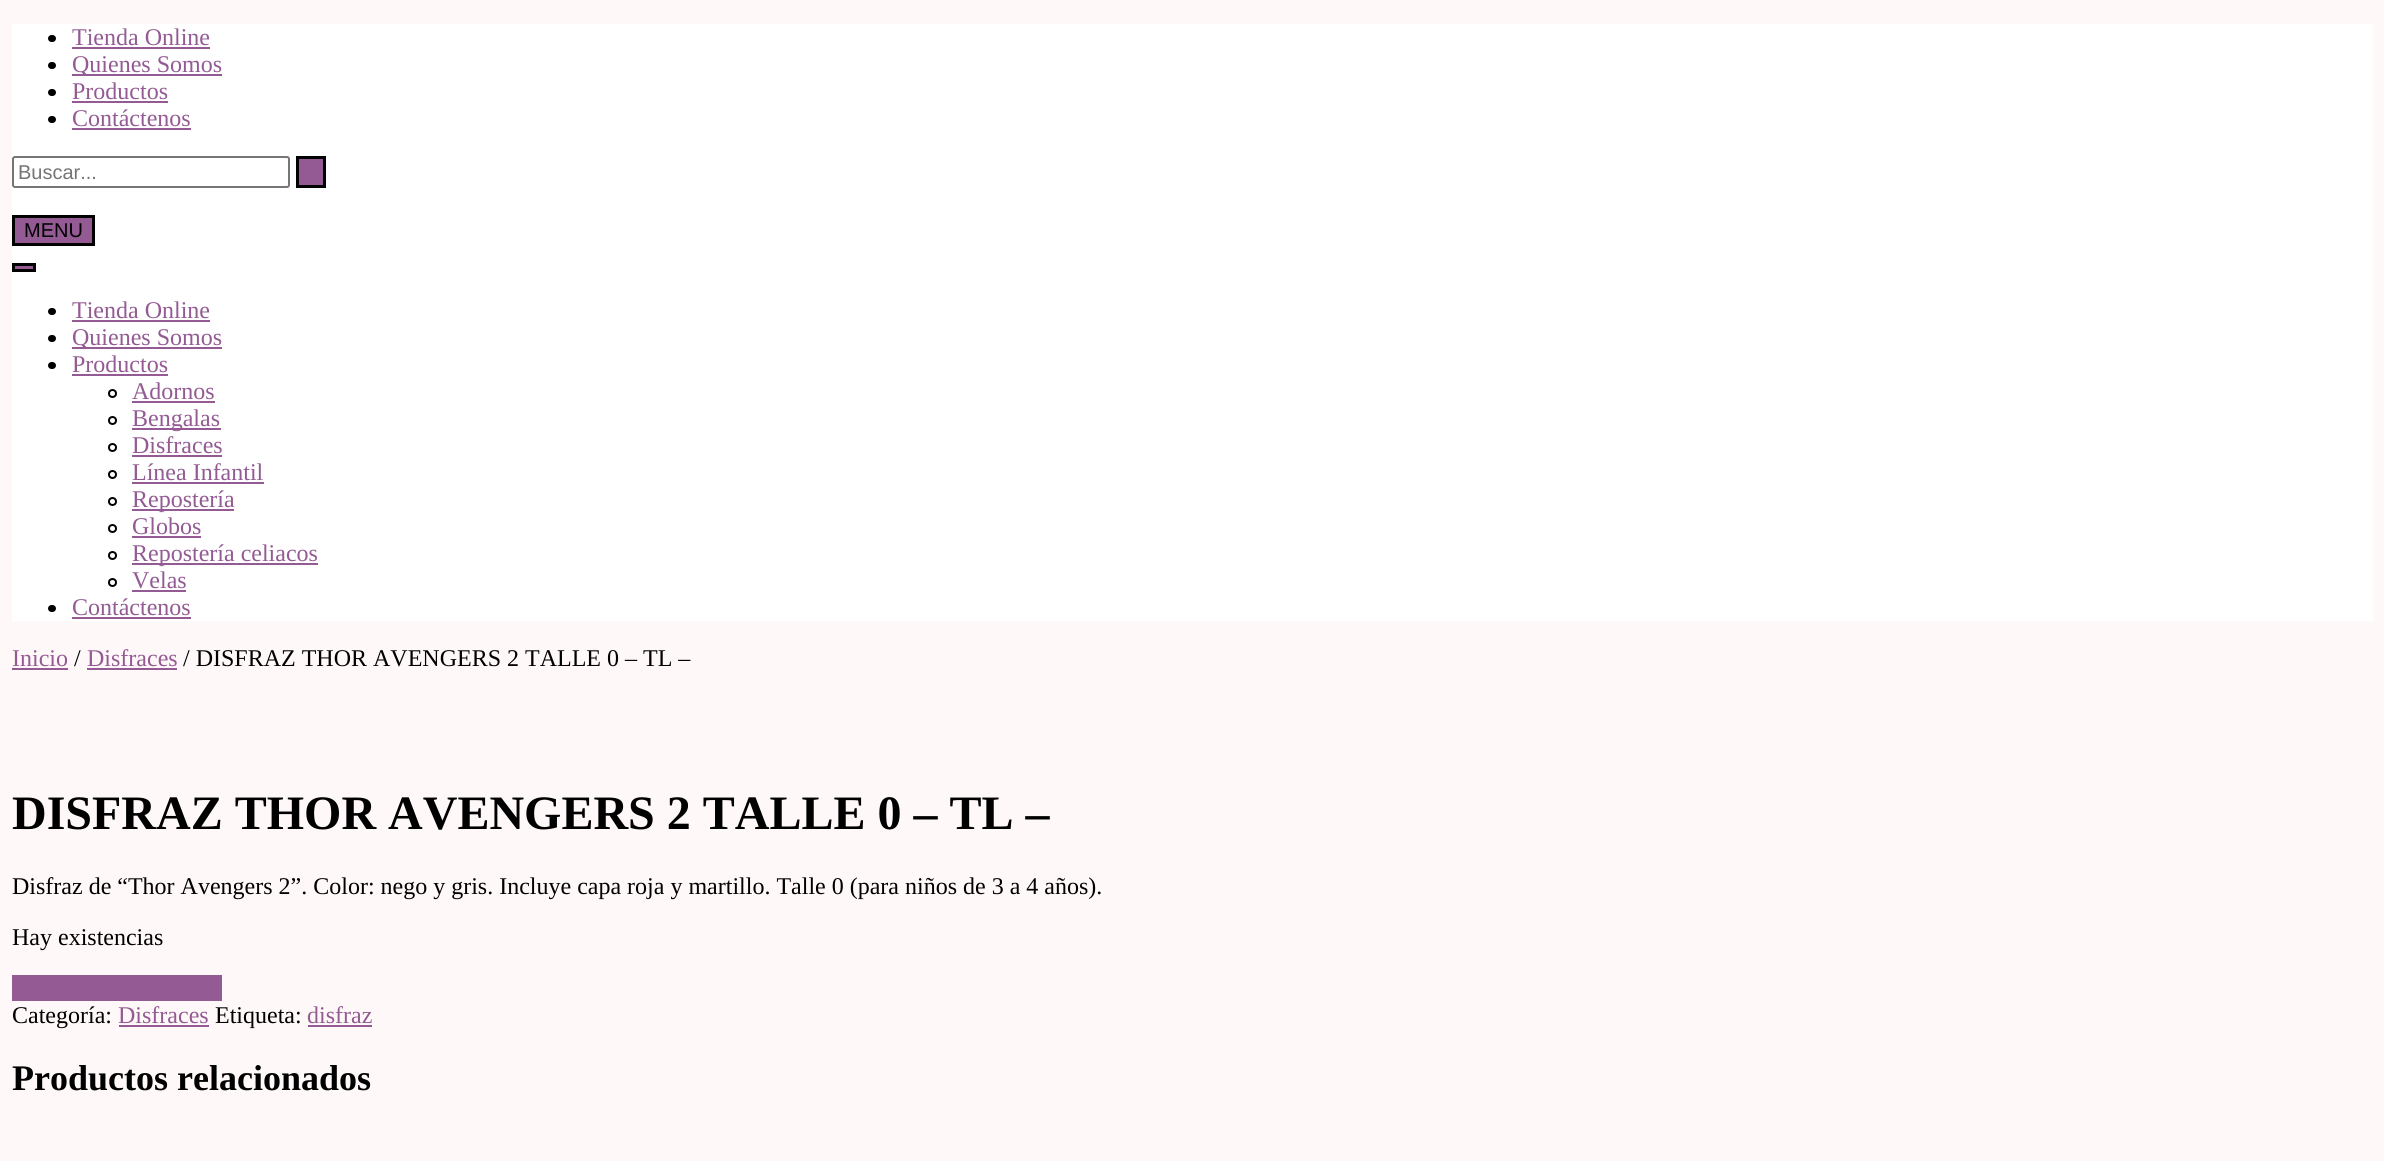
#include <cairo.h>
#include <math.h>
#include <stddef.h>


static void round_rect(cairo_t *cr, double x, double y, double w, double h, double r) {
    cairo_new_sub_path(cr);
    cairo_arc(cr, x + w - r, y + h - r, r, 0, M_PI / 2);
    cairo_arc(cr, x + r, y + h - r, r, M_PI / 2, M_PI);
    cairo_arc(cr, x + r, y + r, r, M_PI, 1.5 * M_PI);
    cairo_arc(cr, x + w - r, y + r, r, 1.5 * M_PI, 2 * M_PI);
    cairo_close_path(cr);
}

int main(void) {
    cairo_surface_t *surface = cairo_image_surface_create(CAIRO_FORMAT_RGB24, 2384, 1161);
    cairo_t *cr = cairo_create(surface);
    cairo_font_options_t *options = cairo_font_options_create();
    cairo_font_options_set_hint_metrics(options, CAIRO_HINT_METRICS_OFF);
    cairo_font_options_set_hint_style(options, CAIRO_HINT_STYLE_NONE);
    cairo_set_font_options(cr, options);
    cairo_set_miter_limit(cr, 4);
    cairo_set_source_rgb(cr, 1, 0.969, 0.969);
    cairo_paint(cr);
    cairo_set_source_rgb(cr, 1, 1, 1);
    cairo_rectangle(cr, 12, 24, 2361, 597);
    cairo_fill(cr);
    cairo_set_source_rgb(cr, 0, 0, 0);
    round_rect(cr, 48, 35, 8, 7, 3.5);
    cairo_fill(cr);
    cairo_select_font_face(cr, "Liberation Serif", CAIRO_FONT_SLANT_NORMAL, CAIRO_FONT_WEIGHT_NORMAL);
    cairo_set_font_size(cr, 24);
    cairo_set_source_rgb(cr, 0.576, 0.353, 0.576);
    cairo_move_to(cr, 72, 45);
    cairo_show_text(cr, "Tienda Online");
    cairo_rectangle(cr, 72, 47, 138, 2);
    cairo_fill(cr);
    cairo_set_source_rgb(cr, 0, 0, 0);
    round_rect(cr, 48, 62, 8, 7, 3.5);
    cairo_fill(cr);
    cairo_set_source_rgb(cr, 0.576, 0.353, 0.576);
    cairo_rectangle(cr, 72, 74, 150, 2);
    cairo_fill(cr);
    cairo_move_to(cr, 72, 72);
    cairo_show_text(cr, "Quienes Somos");
    cairo_set_source_rgb(cr, 0, 0, 0);
    round_rect(cr, 48, 89, 8, 7, 3.5);
    cairo_fill(cr);
    cairo_set_source_rgb(cr, 0.576, 0.353, 0.576);
    cairo_move_to(cr, 72, 99);
    cairo_show_text(cr, "Productos");
    cairo_rectangle(cr, 72, 101, 96, 2);
    cairo_fill(cr);
    cairo_set_source_rgb(cr, 0, 0, 0);
    round_rect(cr, 48, 116, 8, 7, 3.5);
    cairo_fill(cr);
    cairo_set_source_rgb(cr, 0.576, 0.353, 0.576);
    cairo_move_to(cr, 72, 126);
    cairo_show_text(cr, "Contáctenos");
    cairo_rectangle(cr, 72, 128, 119, 2);
    cairo_fill(cr);
    round_rect(cr, 13, 157, 276, 30, 2);
    cairo_set_source_rgb(cr, 0.463, 0.463, 0.463);
    cairo_stroke(cr);
    cairo_select_font_face(cr, "Liberation Sans", CAIRO_FONT_SLANT_NORMAL, CAIRO_FONT_WEIGHT_NORMAL);
    cairo_set_font_size(cr, 20);
    cairo_set_source_rgb(cr, 0.459, 0.459, 0.459);
    cairo_move_to(cr, 18, 179);
    cairo_show_text(cr, "Buscar...");
    cairo_set_source_rgb(cr, 0.576, 0.353, 0.576);
    cairo_rectangle(cr, 297.5, 157.5, 27, 29);
    cairo_fill_preserve(cr);
    cairo_set_source_rgb(cr, 0, 0, 0);
    cairo_set_line_width(cr, 3);
    cairo_stroke(cr);
    cairo_set_source_rgb(cr, 0.576, 0.353, 0.576);
    cairo_rectangle(cr, 13.5, 216.5, 80, 28);
    cairo_fill_preserve(cr);
    cairo_set_source_rgb(cr, 0, 0, 0);
    cairo_stroke(cr);
    cairo_move_to(cr, 24, 237);
    cairo_show_text(cr, "MENU");
    cairo_set_source_rgb(cr, 0.576, 0.353, 0.576);
    cairo_rectangle(cr, 13.5, 264.5, 21, 6);
    cairo_fill_preserve(cr);
    cairo_set_source_rgb(cr, 0, 0, 0);
    cairo_stroke(cr);
    round_rect(cr, 48, 308, 8, 7, 3.5);
    cairo_fill(cr);
    cairo_select_font_face(cr, "Liberation Serif", CAIRO_FONT_SLANT_NORMAL, CAIRO_FONT_WEIGHT_NORMAL);
    cairo_set_font_size(cr, 24);
    cairo_set_source_rgb(cr, 0.576, 0.353, 0.576);
    cairo_move_to(cr, 72, 318);
    cairo_show_text(cr, "Tienda Online");
    cairo_rectangle(cr, 72, 320, 138, 2);
    cairo_fill(cr);
    cairo_set_source_rgb(cr, 0, 0, 0);
    round_rect(cr, 48, 335, 8, 7, 3.5);
    cairo_fill(cr);
    cairo_set_source_rgb(cr, 0.576, 0.353, 0.576);
    cairo_rectangle(cr, 72, 347, 150, 2);
    cairo_fill(cr);
    cairo_move_to(cr, 72, 345);
    cairo_show_text(cr, "Quienes Somos");
    cairo_set_source_rgb(cr, 0, 0, 0);
    round_rect(cr, 48, 362, 8, 7, 3.5);
    cairo_fill(cr);
    cairo_set_source_rgb(cr, 0.576, 0.353, 0.576);
    cairo_move_to(cr, 72, 372);
    cairo_show_text(cr, "Productos");
    cairo_rectangle(cr, 72, 374, 96, 2);
    cairo_fill(cr);
    cairo_arc(cr, 112.5, 393.5, 3.5, 0, 2 * M_PI);
    cairo_set_source_rgb(cr, 0, 0, 0);
    cairo_set_line_width(cr, 2);
    cairo_stroke(cr);
    cairo_set_source_rgb(cr, 0.576, 0.353, 0.576);
    cairo_move_to(cr, 132, 399);
    cairo_show_text(cr, "Adornos");
    cairo_rectangle(cr, 132, 401, 83, 2);
    cairo_fill(cr);
    cairo_arc(cr, 112.5, 420.5, 3.5, 0, 2 * M_PI);
    cairo_set_source_rgb(cr, 0, 0, 0);
    cairo_stroke(cr);
    cairo_set_source_rgb(cr, 0.576, 0.353, 0.576);
    cairo_rectangle(cr, 132, 428, 89, 2);
    cairo_fill(cr);
    cairo_move_to(cr, 132, 426);
    cairo_show_text(cr, "Bengalas");
    cairo_new_path(cr);
    cairo_arc(cr, 112.5, 447.5, 3.5, 0, 2 * M_PI);
    cairo_set_source_rgb(cr, 0, 0, 0);
    cairo_stroke(cr);
    cairo_set_source_rgb(cr, 0.576, 0.353, 0.576);
    cairo_move_to(cr, 132, 453);
    cairo_show_text(cr, "Disfraces");
    cairo_rectangle(cr, 132, 455, 90, 2);
    cairo_fill(cr);
    cairo_arc(cr, 112.5, 474.5, 3.5, 0, 2 * M_PI);
    cairo_set_source_rgb(cr, 0, 0, 0);
    cairo_stroke(cr);
    cairo_set_source_rgb(cr, 0.576, 0.353, 0.576);
    cairo_move_to(cr, 132, 480);
    cairo_show_text(cr, "Línea Infantil");
    cairo_rectangle(cr, 132, 482, 132, 2);
    cairo_fill(cr);
    cairo_arc(cr, 112.5, 501.5, 3.5, 0, 2 * M_PI);
    cairo_set_source_rgb(cr, 0, 0, 0);
    cairo_stroke(cr);
    cairo_set_source_rgb(cr, 0.576, 0.353, 0.576);
    cairo_rectangle(cr, 132, 509, 102, 2);
    cairo_fill(cr);
    cairo_move_to(cr, 132, 507);
    cairo_show_text(cr, "Repostería");
    cairo_new_path(cr);
    cairo_arc(cr, 112.5, 528.5, 3.5, 0, 2 * M_PI);
    cairo_set_source_rgb(cr, 0, 0, 0);
    cairo_stroke(cr);
    cairo_set_source_rgb(cr, 0.576, 0.353, 0.576);
    cairo_move_to(cr, 132, 534);
    cairo_show_text(cr, "Globos");
    cairo_rectangle(cr, 132, 536, 69, 2);
    cairo_fill(cr);
    cairo_arc(cr, 112.5, 555.5, 3.5, 0, 2 * M_PI);
    cairo_set_source_rgb(cr, 0, 0, 0);
    cairo_stroke(cr);
    cairo_set_source_rgb(cr, 0.576, 0.353, 0.576);
    cairo_rectangle(cr, 132, 563, 186, 2);
    cairo_fill(cr);
    cairo_move_to(cr, 132, 561);
    cairo_show_text(cr, "Repostería celiacos");
    cairo_new_path(cr);
    cairo_arc(cr, 112.5, 582.5, 3.5, 0, 2 * M_PI);
    cairo_set_source_rgb(cr, 0, 0, 0);
    cairo_stroke(cr);
    cairo_set_source_rgb(cr, 0.576, 0.353, 0.576);
    cairo_move_to(cr, 132, 588);
    cairo_show_text(cr, "Velas");
    cairo_rectangle(cr, 132, 590, 54, 2);
    cairo_fill(cr);
    cairo_set_source_rgb(cr, 0, 0, 0);
    round_rect(cr, 48, 605, 8, 7, 3.5);
    cairo_fill(cr);
    cairo_set_source_rgb(cr, 0.576, 0.353, 0.576);
    cairo_move_to(cr, 72, 615);
    cairo_show_text(cr, "Contáctenos");
    cairo_rectangle(cr, 72, 617, 119, 2);
    cairo_fill(cr);
    cairo_move_to(cr, 12, 666);
    cairo_show_text(cr, "Inicio");
    cairo_rectangle(cr, 12, 668, 56, 2);
    cairo_fill(cr);
    cairo_set_source_rgb(cr, 0, 0, 0);
    cairo_move_to(cr, 74, 666);
    cairo_show_text(cr, "/");
    cairo_set_source_rgb(cr, 0.576, 0.353, 0.576);
    cairo_move_to(cr, 87, 666);
    cairo_show_text(cr, "Disfraces");
    cairo_rectangle(cr, 87, 668, 90, 2);
    cairo_fill(cr);
    cairo_set_source_rgb(cr, 0, 0, 0);
    cairo_move_to(cr, 183, 666);
    cairo_show_text(cr, "/ DISFRAZ THOR AVENGERS 2 TALLE 0 – TL –");
    cairo_select_font_face(cr, "Liberation Serif", CAIRO_FONT_SLANT_NORMAL, CAIRO_FONT_WEIGHT_BOLD);
    cairo_set_font_size(cr, 48);
    cairo_move_to(cr, 12, 829);
    cairo_show_text(cr, "DISFRAZ THOR AVENGERS 2 TALLE 0 – TL –");
    cairo_select_font_face(cr, "Liberation Serif", CAIRO_FONT_SLANT_NORMAL, CAIRO_FONT_WEIGHT_NORMAL);
    cairo_set_font_size(cr, 24);
    cairo_move_to(cr, 12, 894);
    cairo_show_text(cr, "Disfraz de “Thor Avengers 2”. Color: nego y gris. Incluye capa roja y martillo. Talle 0 (para niños de 3 a 4 años).");
    cairo_move_to(cr, 12, 945);
    cairo_show_text(cr, "Hay existencias");
    cairo_set_source_rgb(cr, 0.576, 0.353, 0.576);
    cairo_rectangle(cr, 12, 975, 210, 26);
    cairo_fill(cr);
    cairo_set_source_rgb(cr, 0, 0, 0);
    cairo_move_to(cr, 12, 1023);
    cairo_show_text(cr, "Categoría:");
    cairo_set_source_rgb(cr, 0.576, 0.353, 0.576);
    cairo_move_to(cr, 118, 1023);
    cairo_show_text(cr, "Disfraces");
    cairo_rectangle(cr, 119, 1025, 90, 2);
    cairo_fill(cr);
    cairo_set_source_rgb(cr, 0, 0, 0);
    cairo_move_to(cr, 215, 1023);
    cairo_show_text(cr, "Etiqueta:");
    cairo_set_source_rgb(cr, 0.576, 0.353, 0.576);
    cairo_move_to(cr, 307, 1023);
    cairo_show_text(cr, "disfraz");
    cairo_rectangle(cr, 308, 1025, 64, 2);
    cairo_fill(cr);
    cairo_select_font_face(cr, "Liberation Serif", CAIRO_FONT_SLANT_NORMAL, CAIRO_FONT_WEIGHT_BOLD);
    cairo_set_font_size(cr, 36);
    cairo_set_source_rgb(cr, 0, 0, 0);
    cairo_move_to(cr, 12, 1090);
    cairo_show_text(cr, "Productos relacionados");
    cairo_surface_write_to_png(surface, "page.png");
    cairo_font_options_destroy(options);
    cairo_destroy(cr);
    cairo_surface_destroy(surface);
    return 0;
}
